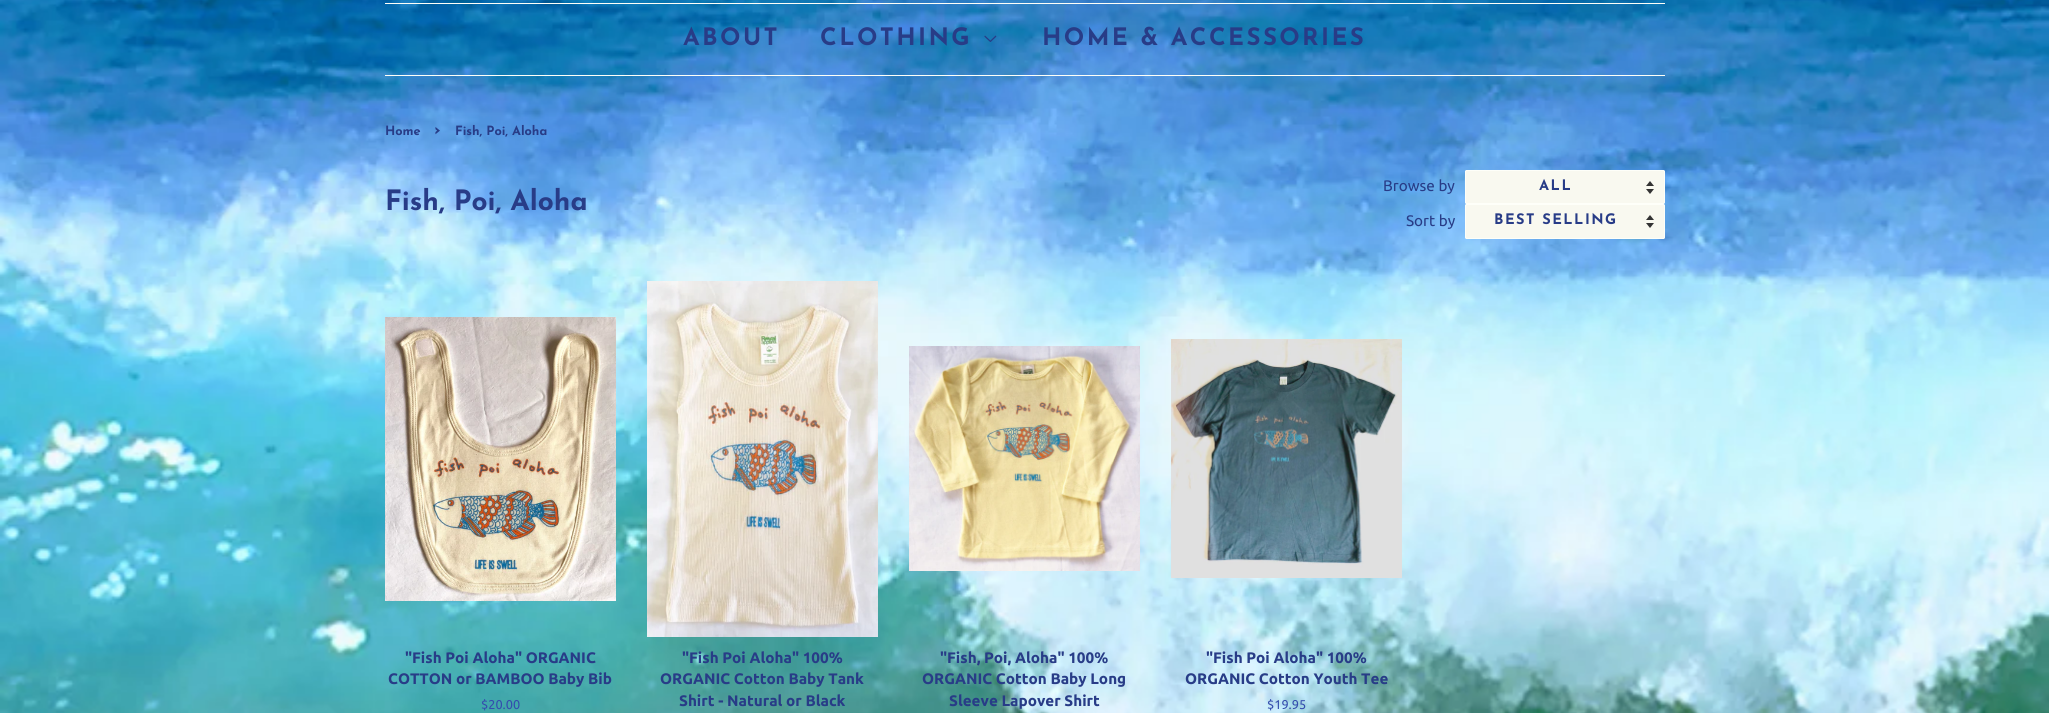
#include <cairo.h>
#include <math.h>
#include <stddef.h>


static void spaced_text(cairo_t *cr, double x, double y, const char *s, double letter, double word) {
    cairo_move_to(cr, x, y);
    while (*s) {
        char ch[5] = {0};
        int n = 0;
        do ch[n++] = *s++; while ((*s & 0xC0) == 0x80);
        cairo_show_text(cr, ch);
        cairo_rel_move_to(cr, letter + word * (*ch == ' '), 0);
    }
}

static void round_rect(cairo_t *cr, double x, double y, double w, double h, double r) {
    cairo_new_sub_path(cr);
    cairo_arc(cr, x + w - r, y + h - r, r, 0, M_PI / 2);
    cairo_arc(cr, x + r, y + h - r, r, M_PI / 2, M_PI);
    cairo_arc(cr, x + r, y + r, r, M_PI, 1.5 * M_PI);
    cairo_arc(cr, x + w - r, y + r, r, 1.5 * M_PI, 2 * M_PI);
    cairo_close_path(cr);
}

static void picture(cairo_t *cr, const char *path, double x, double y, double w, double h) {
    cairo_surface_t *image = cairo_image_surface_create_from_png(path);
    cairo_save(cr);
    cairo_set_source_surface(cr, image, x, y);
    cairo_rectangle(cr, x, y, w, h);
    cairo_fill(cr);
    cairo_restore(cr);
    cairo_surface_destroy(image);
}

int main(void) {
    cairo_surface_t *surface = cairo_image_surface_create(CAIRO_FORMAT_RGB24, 2049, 713);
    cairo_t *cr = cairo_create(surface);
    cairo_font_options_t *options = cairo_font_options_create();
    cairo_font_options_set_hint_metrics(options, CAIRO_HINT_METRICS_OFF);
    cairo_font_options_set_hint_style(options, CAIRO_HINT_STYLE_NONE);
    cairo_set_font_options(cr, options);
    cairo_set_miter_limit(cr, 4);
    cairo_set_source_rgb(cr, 1, 1, 1);
    cairo_paint(cr);
    picture(cr, "img1.png", 0, 0, 2049, 713);
    cairo_set_source_rgb(cr, 0.996, 1, 0.976);
    cairo_rectangle(cr, 385, 3, 1280, 1);
    cairo_fill(cr);
    cairo_rectangle(cr, 385, 75, 1280, 1);
    cairo_fill(cr);
    cairo_select_font_face(cr, "Josefin Sans Thin", CAIRO_FONT_SLANT_NORMAL, CAIRO_FONT_WEIGHT_NORMAL);
    cairo_set_font_size(cr, 24);
    cairo_set_source_rgb(cr, 0.157, 0.235, 0.529);
    spaced_text(cr, 683, 45, "ABOUT", 2.4, 0);
    spaced_text(cr, 820, 45, "CLOTHING", 2.4, 0);
    picture(cr, "img2.png", 984, 35, 13, 7);
    spaced_text(cr, 1042, 45, "HOME & ACCESSORIES", 2.4, 0);
    cairo_set_font_size(cr, 12.75);
    cairo_move_to(cr, 385, 135);
    cairo_show_text(cr, "Home");
    cairo_set_font_size(cr, 18);
    cairo_move_to(cr, 434, 135);
    cairo_show_text(cr, "›");
    cairo_set_font_size(cr, 12.75);
    cairo_move_to(cr, 455, 135);
    cairo_show_text(cr, "Fish, Poi, Aloha");
    cairo_set_font_size(cr, 28);
    cairo_move_to(cr, 385, 210);
    cairo_show_text(cr, "Fish, Poi, Aloha");
    cairo_select_font_face(cr, "Ubuntu", CAIRO_FONT_SLANT_NORMAL, CAIRO_FONT_WEIGHT_NORMAL);
    cairo_set_font_size(cr, 15.25);
    cairo_move_to(cr, 1383, 191);
    cairo_show_text(cr, "Browse by");
    cairo_set_source_rgb(cr, 0.976, 0.976, 0.941);
    round_rect(cr, 1465, 170, 200, 34, 2);
    cairo_fill(cr);
    picture(cr, "img3.png", 1646, 181, 8, 13);
    round_rect(cr, 1465.5, 170.5, 199, 33, 1.5);
    cairo_set_source_rgb(cr, 0.996, 1, 0.976);
    cairo_set_line_width(cr, 1);
    cairo_stroke(cr);
    cairo_select_font_face(cr, "Josefin Sans Thin", CAIRO_FONT_SLANT_NORMAL, CAIRO_FONT_WEIGHT_NORMAL);
    cairo_set_font_size(cr, 14.5);
    cairo_set_source_rgb(cr, 0.157, 0.235, 0.529);
    spaced_text(cr, 1539, 190, "ALL", 1.5, 0);
    cairo_select_font_face(cr, "Ubuntu", CAIRO_FONT_SLANT_NORMAL, CAIRO_FONT_WEIGHT_NORMAL);
    cairo_set_font_size(cr, 15.25);
    cairo_move_to(cr, 1406, 226);
    cairo_show_text(cr, "Sort by");
    cairo_set_source_rgb(cr, 0.976, 0.976, 0.941);
    round_rect(cr, 1465, 204, 200, 35, 2);
    cairo_fill(cr);
    picture(cr, "img3.png", 1646, 215, 8, 13);
    round_rect(cr, 1465.5, 204.5, 199, 34, 1.5);
    cairo_set_source_rgb(cr, 0.996, 1, 0.976);
    cairo_stroke(cr);
    cairo_select_font_face(cr, "Josefin Sans Thin", CAIRO_FONT_SLANT_NORMAL, CAIRO_FONT_WEIGHT_NORMAL);
    cairo_set_font_size(cr, 14.5);
    cairo_set_source_rgb(cr, 0.157, 0.235, 0.529);
    spaced_text(cr, 1494, 224, "BEST SELLING", 1.5, 0);
    picture(cr, "img4.png", 385, 317, 231, 284);
    cairo_select_font_face(cr, "Ubuntu", CAIRO_FONT_SLANT_NORMAL, CAIRO_FONT_WEIGHT_BOLD);
    cairo_set_font_size(cr, 15.25);
    cairo_move_to(cr, 405, 663);
    cairo_show_text(cr, "\"Fish Poi Aloha\" ORGANIC");
    cairo_move_to(cr, 388, 684);
    cairo_show_text(cr, "COTTON or BAMBOO Baby Bib");
    cairo_select_font_face(cr, "Ubuntu", CAIRO_FONT_SLANT_NORMAL, CAIRO_FONT_WEIGHT_NORMAL);
    cairo_set_font_size(cr, 12.75);
    cairo_set_source_rgb(cr, 0.204, 0.302, 0.682);
    cairo_move_to(cr, 481, 709);
    cairo_show_text(cr, "$20.00");
    picture(cr, "img5.png", 647, 281, 231, 356);
    cairo_select_font_face(cr, "Ubuntu", CAIRO_FONT_SLANT_NORMAL, CAIRO_FONT_WEIGHT_BOLD);
    cairo_set_font_size(cr, 15.25);
    cairo_set_source_rgb(cr, 0.157, 0.235, 0.529);
    cairo_move_to(cr, 682, 663);
    cairo_show_text(cr, "\"Fish Poi Aloha\" 100%");
    cairo_move_to(cr, 660, 684);
    cairo_show_text(cr, "ORGANIC Cotton Baby Tank");
    cairo_move_to(cr, 679, 706);
    cairo_show_text(cr, "Shirt - Natural or Black");
    picture(cr, "img6.png", 909, 346, 231, 225);
    cairo_move_to(cr, 940, 663);
    cairo_show_text(cr, "\"Fish, Poi, Aloha\" 100%");
    cairo_move_to(cr, 922, 684);
    cairo_show_text(cr, "ORGANIC Cotton Baby Long");
    cairo_move_to(cr, 949, 706);
    cairo_show_text(cr, "Sleeve Lapover Shirt");
    picture(cr, "img7.png", 1171, 339, 231, 239);
    cairo_move_to(cr, 1206, 663);
    cairo_show_text(cr, "\"Fish Poi Aloha\" 100%");
    cairo_move_to(cr, 1185, 684);
    cairo_show_text(cr, "ORGANIC Cotton Youth Tee");
    cairo_select_font_face(cr, "Ubuntu", CAIRO_FONT_SLANT_NORMAL, CAIRO_FONT_WEIGHT_NORMAL);
    cairo_set_font_size(cr, 12.75);
    cairo_set_source_rgb(cr, 0.204, 0.302, 0.682);
    cairo_move_to(cr, 1267, 709);
    cairo_show_text(cr, "$19.95");
    cairo_surface_write_to_png(surface, "page.png");
    cairo_font_options_destroy(options);
    cairo_destroy(cr);
    cairo_surface_destroy(surface);
    return 0;
}
